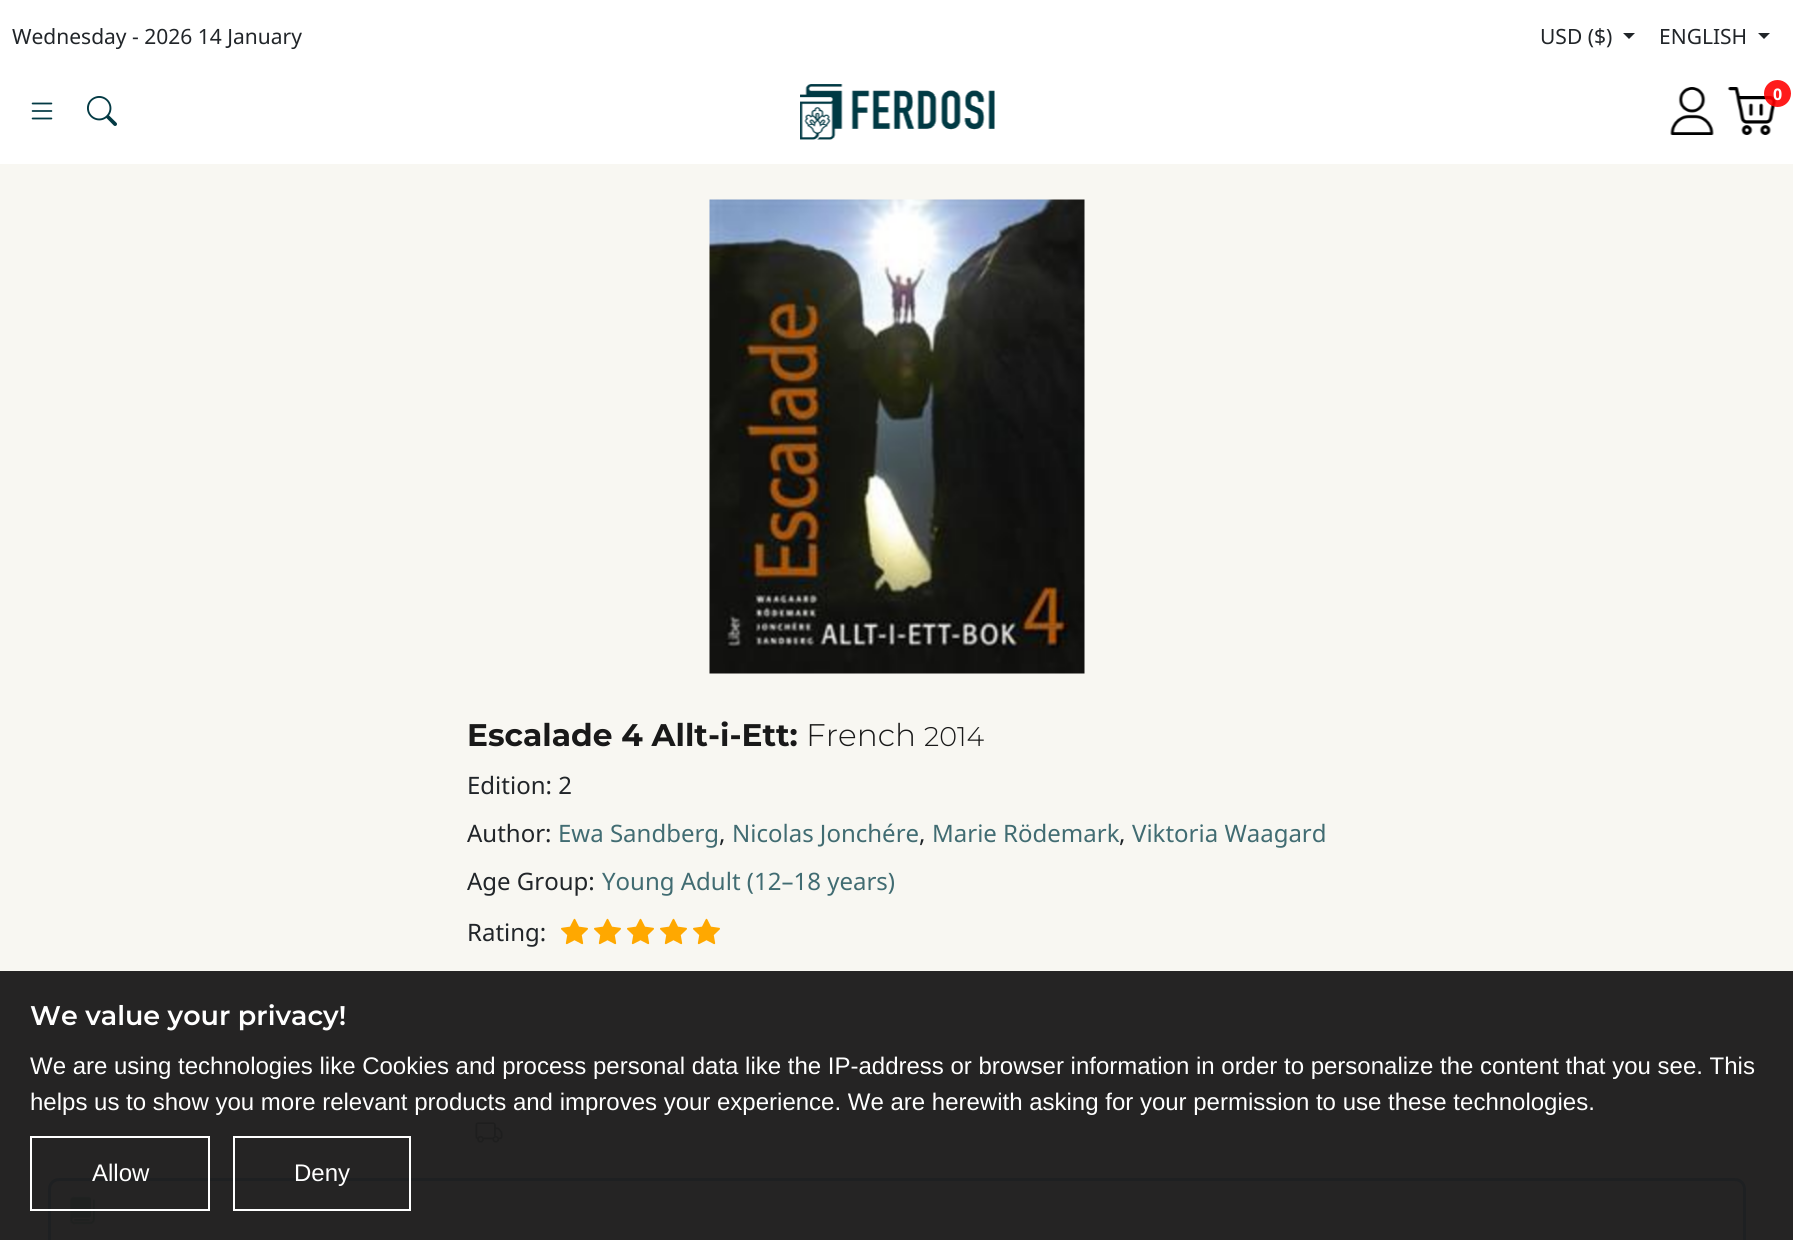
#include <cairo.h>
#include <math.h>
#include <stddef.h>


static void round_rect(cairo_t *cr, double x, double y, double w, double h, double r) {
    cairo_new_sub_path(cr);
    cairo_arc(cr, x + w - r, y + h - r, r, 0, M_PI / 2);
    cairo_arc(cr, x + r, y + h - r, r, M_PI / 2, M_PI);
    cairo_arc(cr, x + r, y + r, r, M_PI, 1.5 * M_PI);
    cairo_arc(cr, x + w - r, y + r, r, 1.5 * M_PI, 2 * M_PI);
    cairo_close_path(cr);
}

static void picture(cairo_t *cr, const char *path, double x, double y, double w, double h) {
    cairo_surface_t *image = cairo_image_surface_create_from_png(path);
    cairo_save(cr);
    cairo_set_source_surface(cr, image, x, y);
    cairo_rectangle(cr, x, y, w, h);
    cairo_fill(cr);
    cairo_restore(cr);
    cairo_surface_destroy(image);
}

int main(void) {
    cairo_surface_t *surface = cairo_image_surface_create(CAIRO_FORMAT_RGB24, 1793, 1240);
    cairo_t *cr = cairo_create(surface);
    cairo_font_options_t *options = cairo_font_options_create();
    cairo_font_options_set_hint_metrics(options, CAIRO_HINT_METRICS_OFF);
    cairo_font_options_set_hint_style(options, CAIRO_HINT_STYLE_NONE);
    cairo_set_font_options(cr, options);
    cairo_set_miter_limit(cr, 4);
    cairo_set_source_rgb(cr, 0.969, 0.965, 0.949);
    cairo_paint(cr);
    cairo_set_source_rgb(cr, 0.145, 0.141, 0.141);
    cairo_rectangle(cr, 0, 971, 1793, 269);
    cairo_fill(cr);
    cairo_set_source_rgb(cr, 1, 1, 1);
    cairo_rectangle(cr, 0, 0, 1793, 164);
    cairo_fill(cr);
    cairo_select_font_face(cr, "Noto Sans", CAIRO_FONT_SLANT_NORMAL, CAIRO_FONT_WEIGHT_NORMAL);
    cairo_set_font_size(cr, 21);
    cairo_set_source_rgb(cr, 0.129, 0.145, 0.161);
    cairo_move_to(cr, 12, 44);
    cairo_show_text(cr, "Wednesday - 2026 14 January");
    cairo_move_to(cr, 1540, 44);
    cairo_show_text(cr, "USD ($)");
    cairo_new_path(cr);
    cairo_move_to(cr, 1623, 33);
    cairo_line_to(cr, 1635, 33);
    cairo_line_to(cr, 1629, 39);
    cairo_close_path(cr);
    cairo_fill(cr);
    cairo_move_to(cr, 1659, 44);
    cairo_show_text(cr, "ENGLISH");
    cairo_new_path(cr);
    cairo_move_to(cr, 1758, 33);
    cairo_line_to(cr, 1770, 33);
    cairo_line_to(cr, 1764, 39);
    cairo_close_path(cr);
    cairo_fill(cr);
    picture(cr, "img1.png", 800, 84, 195, 56);
    picture(cr, "img2.png", 1670, 87, 44, 48);
    picture(cr, "img3.png", 1727, 87, 50, 48);
    cairo_set_source_rgba(cr, 1, 0, 0, 0.89);
    cairo_arc(cr, 1777.5, 93.5, 13.5, 0, 2 * M_PI);
    cairo_fill(cr);
    cairo_select_font_face(cr, "Noto Sans", CAIRO_FONT_SLANT_NORMAL, CAIRO_FONT_WEIGHT_BOLD);
    cairo_set_font_size(cr, 16);
    cairo_set_source_rgb(cr, 1, 1, 1);
    cairo_move_to(cr, 1773, 100);
    cairo_show_text(cr, "0");
    picture(cr, "img4.png", 31, 102, 22, 18);
    picture(cr, "img5.png", 87, 96, 30, 30);
    picture(cr, "img6.png", 709, 199, 376, 475);
    cairo_select_font_face(cr, "Montserrat", CAIRO_FONT_SLANT_NORMAL, CAIRO_FONT_WEIGHT_BOLD);
    cairo_set_font_size(cr, 31.25);
    cairo_set_source_rgb(cr, 0.098, 0.098, 0.098);
    cairo_move_to(cr, 467, 746);
    cairo_show_text(cr, "Escalade 4 Allt-i-Ett:");
    cairo_select_font_face(cr, "Montserrat Light", CAIRO_FONT_SLANT_NORMAL, CAIRO_FONT_WEIGHT_NORMAL);
    cairo_move_to(cr, 806, 746);
    cairo_show_text(cr, "French");
    cairo_set_font_size(cr, 27);
    cairo_move_to(cr, 924, 746);
    cairo_show_text(cr, "2014");
    cairo_select_font_face(cr, "Noto Sans", CAIRO_FONT_SLANT_NORMAL, CAIRO_FONT_WEIGHT_NORMAL);
    cairo_set_font_size(cr, 24);
    cairo_set_source_rgb(cr, 0.129, 0.145, 0.161);
    cairo_move_to(cr, 467, 794);
    cairo_show_text(cr, "Edition: 2");
    cairo_move_to(cr, 467, 842);
    cairo_show_text(cr, "Author:");
    cairo_set_source_rgb(cr, 0.255, 0.424, 0.447);
    cairo_move_to(cr, 558, 842);
    cairo_show_text(cr, "Ewa Sandberg");
    cairo_set_source_rgb(cr, 0.129, 0.145, 0.161);
    cairo_move_to(cr, 719, 842);
    cairo_show_text(cr, ",");
    cairo_set_source_rgb(cr, 0.255, 0.424, 0.447);
    cairo_move_to(cr, 732, 842);
    cairo_show_text(cr, "Nicolas Jonchére");
    cairo_set_source_rgb(cr, 0.129, 0.145, 0.161);
    cairo_move_to(cr, 919, 842);
    cairo_show_text(cr, ",");
    cairo_set_source_rgb(cr, 0.255, 0.424, 0.447);
    cairo_move_to(cr, 932, 842);
    cairo_show_text(cr, "Marie Rödemark");
    cairo_set_source_rgb(cr, 0.129, 0.145, 0.161);
    cairo_move_to(cr, 1119, 842);
    cairo_show_text(cr, ",");
    cairo_set_source_rgb(cr, 0.255, 0.424, 0.447);
    cairo_move_to(cr, 1132, 842);
    cairo_show_text(cr, "Viktoria Waagard");
    cairo_set_source_rgb(cr, 0.129, 0.145, 0.161);
    cairo_move_to(cr, 467, 890);
    cairo_show_text(cr, "Age Group:");
    cairo_set_source_rgb(cr, 0.255, 0.424, 0.447);
    cairo_move_to(cr, 602, 890);
    cairo_show_text(cr, "Young Adult (12–18 years)");
    cairo_set_source_rgb(cr, 0.129, 0.145, 0.161);
    cairo_move_to(cr, 467, 941);
    cairo_show_text(cr, "Rating:");
    picture(cr, "img7.png", 561, 918, 27, 27);
    picture(cr, "img7.png", 594, 918, 27, 27);
    picture(cr, "img7.png", 627, 918, 27, 27);
    picture(cr, "img7.png", 660, 918, 27, 27);
    picture(cr, "img7.png", 693, 918, 27, 27);
    picture(cr, "img8.png", 475, 1122, 28, 21);
    round_rect(cr, 49.5, 1179.5, 1695, 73, 9.5);
    cairo_set_source_rgb(cr, 0.118, 0.125, 0.133);
    cairo_set_line_width(cr, 3);
    cairo_stroke(cr);
    picture(cr, "img9.png", 70, 1196, 25, 29);
    cairo_select_font_face(cr, "Montserrat SemiBold", CAIRO_FONT_SLANT_NORMAL, CAIRO_FONT_WEIGHT_NORMAL);
    cairo_set_font_size(cr, 27);
    cairo_set_source_rgb(cr, 1, 1, 1);
    cairo_move_to(cr, 30, 1025);
    cairo_show_text(cr, "We value your privacy!");
    cairo_select_font_face(cr, "Liberation Sans", CAIRO_FONT_SLANT_NORMAL, CAIRO_FONT_WEIGHT_NORMAL);
    cairo_set_font_size(cr, 24);
    cairo_move_to(cr, 30, 1074);
    cairo_show_text(cr, "We are using technologies like Cookies and process personal data like the IP-address or browser information in order to personalize the content that you see. This");
    cairo_move_to(cr, 30, 1110);
    cairo_show_text(cr, "helps us to show you more relevant products and improves your experience. We are herewith asking for your permission to use these technologies.");
    cairo_rectangle(cr, 31, 1137, 178, 73);
    cairo_set_line_width(cr, 2);
    cairo_stroke(cr);
    cairo_move_to(cr, 92, 1181);
    cairo_show_text(cr, "Allow");
    cairo_rectangle(cr, 234, 1137, 176, 73);
    cairo_stroke(cr);
    cairo_move_to(cr, 294, 1181);
    cairo_show_text(cr, "Deny");
    cairo_surface_write_to_png(surface, "page.png");
    cairo_font_options_destroy(options);
    cairo_destroy(cr);
    cairo_surface_destroy(surface);
    return 0;
}
